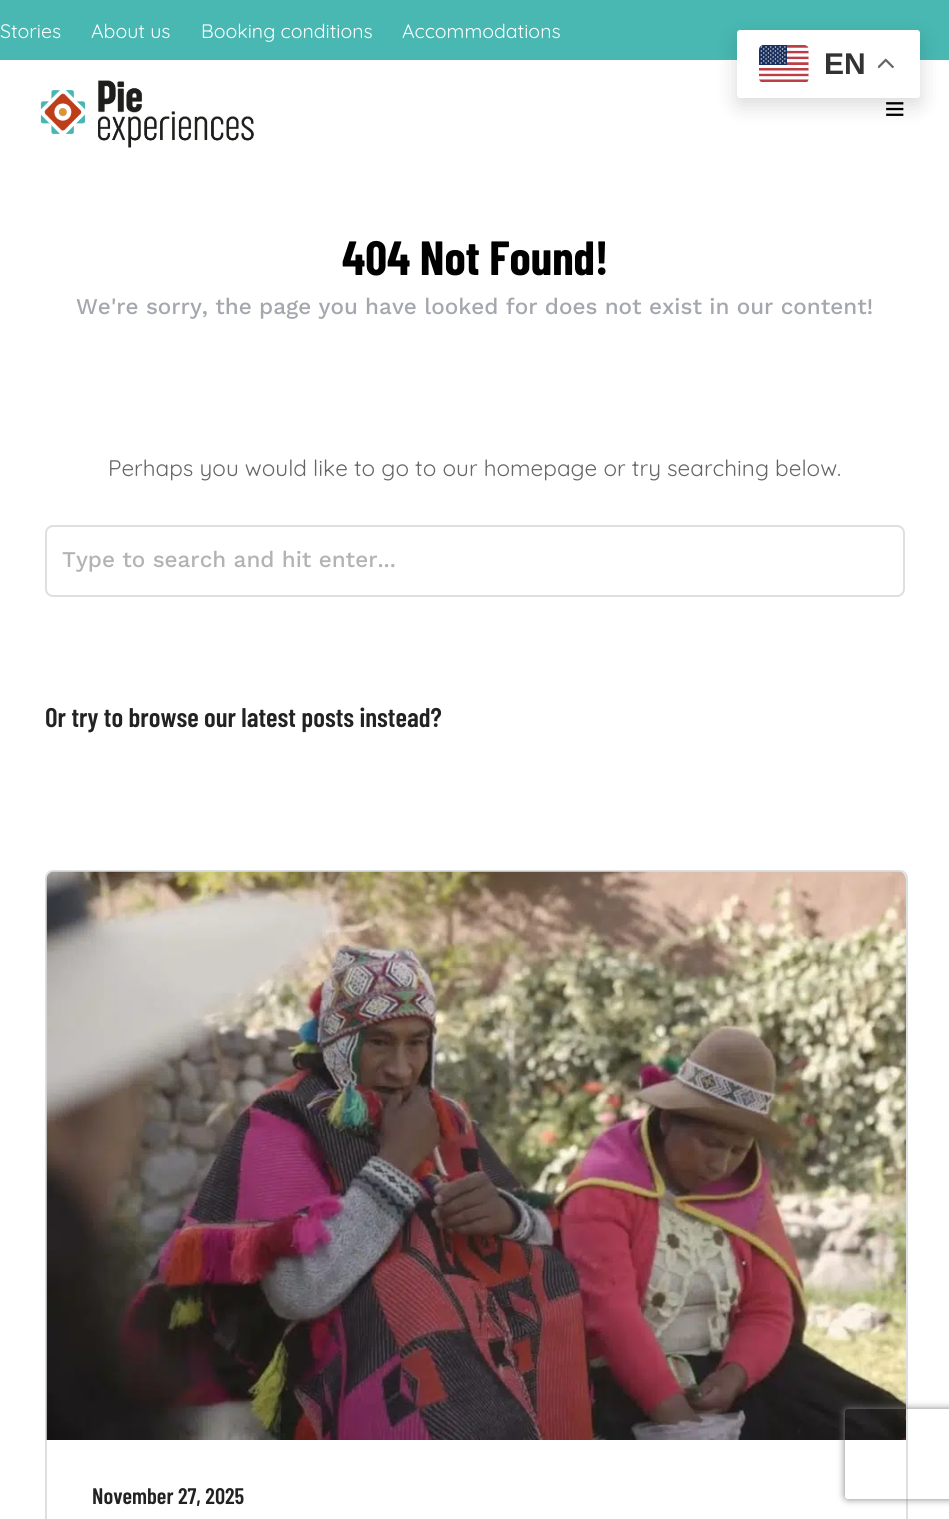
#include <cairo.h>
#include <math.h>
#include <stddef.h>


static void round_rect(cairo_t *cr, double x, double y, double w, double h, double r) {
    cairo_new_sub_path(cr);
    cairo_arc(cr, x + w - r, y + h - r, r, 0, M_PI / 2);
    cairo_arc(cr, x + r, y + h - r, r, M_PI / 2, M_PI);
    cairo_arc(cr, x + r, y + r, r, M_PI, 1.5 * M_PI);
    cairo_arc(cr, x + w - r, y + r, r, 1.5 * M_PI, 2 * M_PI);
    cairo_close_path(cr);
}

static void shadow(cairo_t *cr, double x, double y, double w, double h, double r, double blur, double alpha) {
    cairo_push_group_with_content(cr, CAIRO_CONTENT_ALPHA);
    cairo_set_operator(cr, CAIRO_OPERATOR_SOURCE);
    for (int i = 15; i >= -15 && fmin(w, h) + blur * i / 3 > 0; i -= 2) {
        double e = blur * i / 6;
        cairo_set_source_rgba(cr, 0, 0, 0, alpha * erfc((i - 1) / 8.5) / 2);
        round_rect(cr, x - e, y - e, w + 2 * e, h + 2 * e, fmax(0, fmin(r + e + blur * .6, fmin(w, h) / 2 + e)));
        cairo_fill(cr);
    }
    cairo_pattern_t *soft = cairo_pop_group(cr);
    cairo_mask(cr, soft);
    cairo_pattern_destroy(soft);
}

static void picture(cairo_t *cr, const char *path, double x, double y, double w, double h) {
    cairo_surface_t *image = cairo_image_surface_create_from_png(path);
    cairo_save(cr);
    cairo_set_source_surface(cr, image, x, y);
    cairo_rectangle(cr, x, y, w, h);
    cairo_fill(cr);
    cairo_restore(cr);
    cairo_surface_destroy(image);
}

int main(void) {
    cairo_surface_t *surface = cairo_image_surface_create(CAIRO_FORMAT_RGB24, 949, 1519);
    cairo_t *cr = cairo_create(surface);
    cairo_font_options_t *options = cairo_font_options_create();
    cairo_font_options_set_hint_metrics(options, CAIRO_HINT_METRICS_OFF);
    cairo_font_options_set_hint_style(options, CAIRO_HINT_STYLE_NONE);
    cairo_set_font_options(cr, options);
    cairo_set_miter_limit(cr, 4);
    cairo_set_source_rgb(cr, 1, 1, 1);
    cairo_paint(cr);
    cairo_set_source_rgb(cr, 0.286, 0.722, 0.698);
    cairo_rectangle(cr, 0, 0, 949, 60);
    cairo_fill(cr);
    cairo_select_font_face(cr, "Quicksand Light", CAIRO_FONT_SLANT_NORMAL, CAIRO_FONT_WEIGHT_NORMAL);
    cairo_set_font_size(cr, 19.5);
    cairo_set_source_rgb(cr, 1, 1, 1);
    cairo_move_to(cr, 0, 38);
    cairo_show_text(cr, "Stories");
    cairo_move_to(cr, 91, 38);
    cairo_show_text(cr, "About us");
    cairo_move_to(cr, 201, 38);
    cairo_show_text(cr, "Booking conditions");
    cairo_move_to(cr, 402, 38);
    cairo_show_text(cr, "Accommodations");
    picture(cr, "img1.png", 40, 80, 214, 68);
    picture(cr, "img2.png", 886, 102, 18, 14);
    cairo_select_font_face(cr, "Barlow Condensed", CAIRO_FONT_SLANT_NORMAL, CAIRO_FONT_WEIGHT_BOLD);
    cairo_set_font_size(cr, 48);
    cairo_set_source_rgb(cr, 0, 0, 0);
    cairo_move_to(cr, 342, 275);
    cairo_show_text(cr, "404 Not Found!");
    cairo_select_font_face(cr, "Work Sans Medium", CAIRO_FONT_SLANT_NORMAL, CAIRO_FONT_WEIGHT_NORMAL);
    cairo_set_font_size(cr, 22.5);
    cairo_set_source_rgb(cr, 0.643, 0.655, 0.678);
    cairo_move_to(cr, 76, 314);
    cairo_show_text(cr, "We're sorry, the page you have looked for does not exist in our content!");
    cairo_select_font_face(cr, "Quicksand Light", CAIRO_FONT_SLANT_NORMAL, CAIRO_FONT_WEIGHT_NORMAL);
    cairo_set_source_rgb(cr, 0.4, 0.4, 0.4);
    cairo_move_to(cr, 108, 476);
    cairo_show_text(cr, "Perhaps you would like to go to our homepage or try searching below.");
    round_rect(cr, 46, 526, 858, 70, 7);
    cairo_set_source_rgb(cr, 0.863, 0.878, 0.878);
    cairo_stroke(cr);
    cairo_select_font_face(cr, "Work Sans Medium", CAIRO_FONT_SLANT_NORMAL, CAIRO_FONT_WEIGHT_NORMAL);
    cairo_set_source_rgb(cr, 0.702, 0.702, 0.702);
    cairo_move_to(cr, 62, 567);
    cairo_show_text(cr, "Type to search and hit enter...");
    cairo_select_font_face(cr, "Barlow Condensed SemiBold", CAIRO_FONT_SLANT_NORMAL, CAIRO_FONT_WEIGHT_NORMAL);
    cairo_set_font_size(cr, 27);
    cairo_set_source_rgb(cr, 0.133, 0.133, 0.133);
    cairo_move_to(cr, 45, 727);
    cairo_show_text(cr, "Or try to browse our latest posts instead?");
    round_rect(cr, 46, 871, 861, 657, 7);
    cairo_set_source_rgb(cr, 0.863, 0.878, 0.878);
    cairo_stroke(cr);
    picture(cr, "img3.png", 46, 871, 860, 569);
    cairo_set_font_size(cr, 22.5);
    cairo_set_source_rgb(cr, 0.133, 0.133, 0.133);
    cairo_move_to(cr, 92, 1504);
    cairo_show_text(cr, "November 27, 2025");
    cairo_set_source_rgb(cr, 0, 0, 0);
    shadow(cr, 737, 38, 183, 67, 3, 11, 0.15);
    cairo_set_source_rgb(cr, 1, 1, 1);
    round_rect(cr, 737, 30, 183, 68, 3);
    cairo_fill(cr);
    picture(cr, "img4.png", 759, 45, 50, 37);
    cairo_select_font_face(cr, "Liberation Sans", CAIRO_FONT_SLANT_NORMAL, CAIRO_FONT_WEIGHT_BOLD);
    cairo_set_font_size(cr, 30);
    cairo_set_source_rgb(cr, 0.2, 0.2, 0.2);
    cairo_move_to(cr, 824, 74);
    cairo_show_text(cr, "EN");
    picture(cr, "img5.png", 878, 58, 16, 11);
    cairo_save(cr);
    cairo_set_fill_rule(cr, CAIRO_FILL_RULE_EVEN_ODD);
    cairo_new_path(cr);
    cairo_move_to(cr, 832, 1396);
    cairo_line_to(cr, 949, 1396);
    cairo_line_to(cr, 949, 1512);
    cairo_line_to(cr, 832, 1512);
    cairo_close_path(cr);
    cairo_move_to(cr, 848, 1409);
    cairo_line_to(cr, 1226, 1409);
    cairo_curve_to(cr, 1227.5, 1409, 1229, 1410.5, 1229, 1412);
    cairo_line_to(cr, 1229, 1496);
    cairo_curve_to(cr, 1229, 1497.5, 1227.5, 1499, 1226, 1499);
    cairo_line_to(cr, 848, 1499);
    cairo_curve_to(cr, 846.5, 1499, 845, 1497.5, 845, 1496);
    cairo_line_to(cr, 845, 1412);
    cairo_curve_to(cr, 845, 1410.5, 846.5, 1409, 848, 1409);
    cairo_close_path(cr);
    cairo_clip(cr);
    cairo_set_source_rgb(cr, 0.502, 0.502, 0.502);
    shadow(cr, 845, 1409, 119, 90, 3, 4, 1);
    cairo_restore(cr);
    cairo_surface_write_to_png(surface, "page.png");
    cairo_font_options_destroy(options);
    cairo_destroy(cr);
    cairo_surface_destroy(surface);
    return 0;
}
